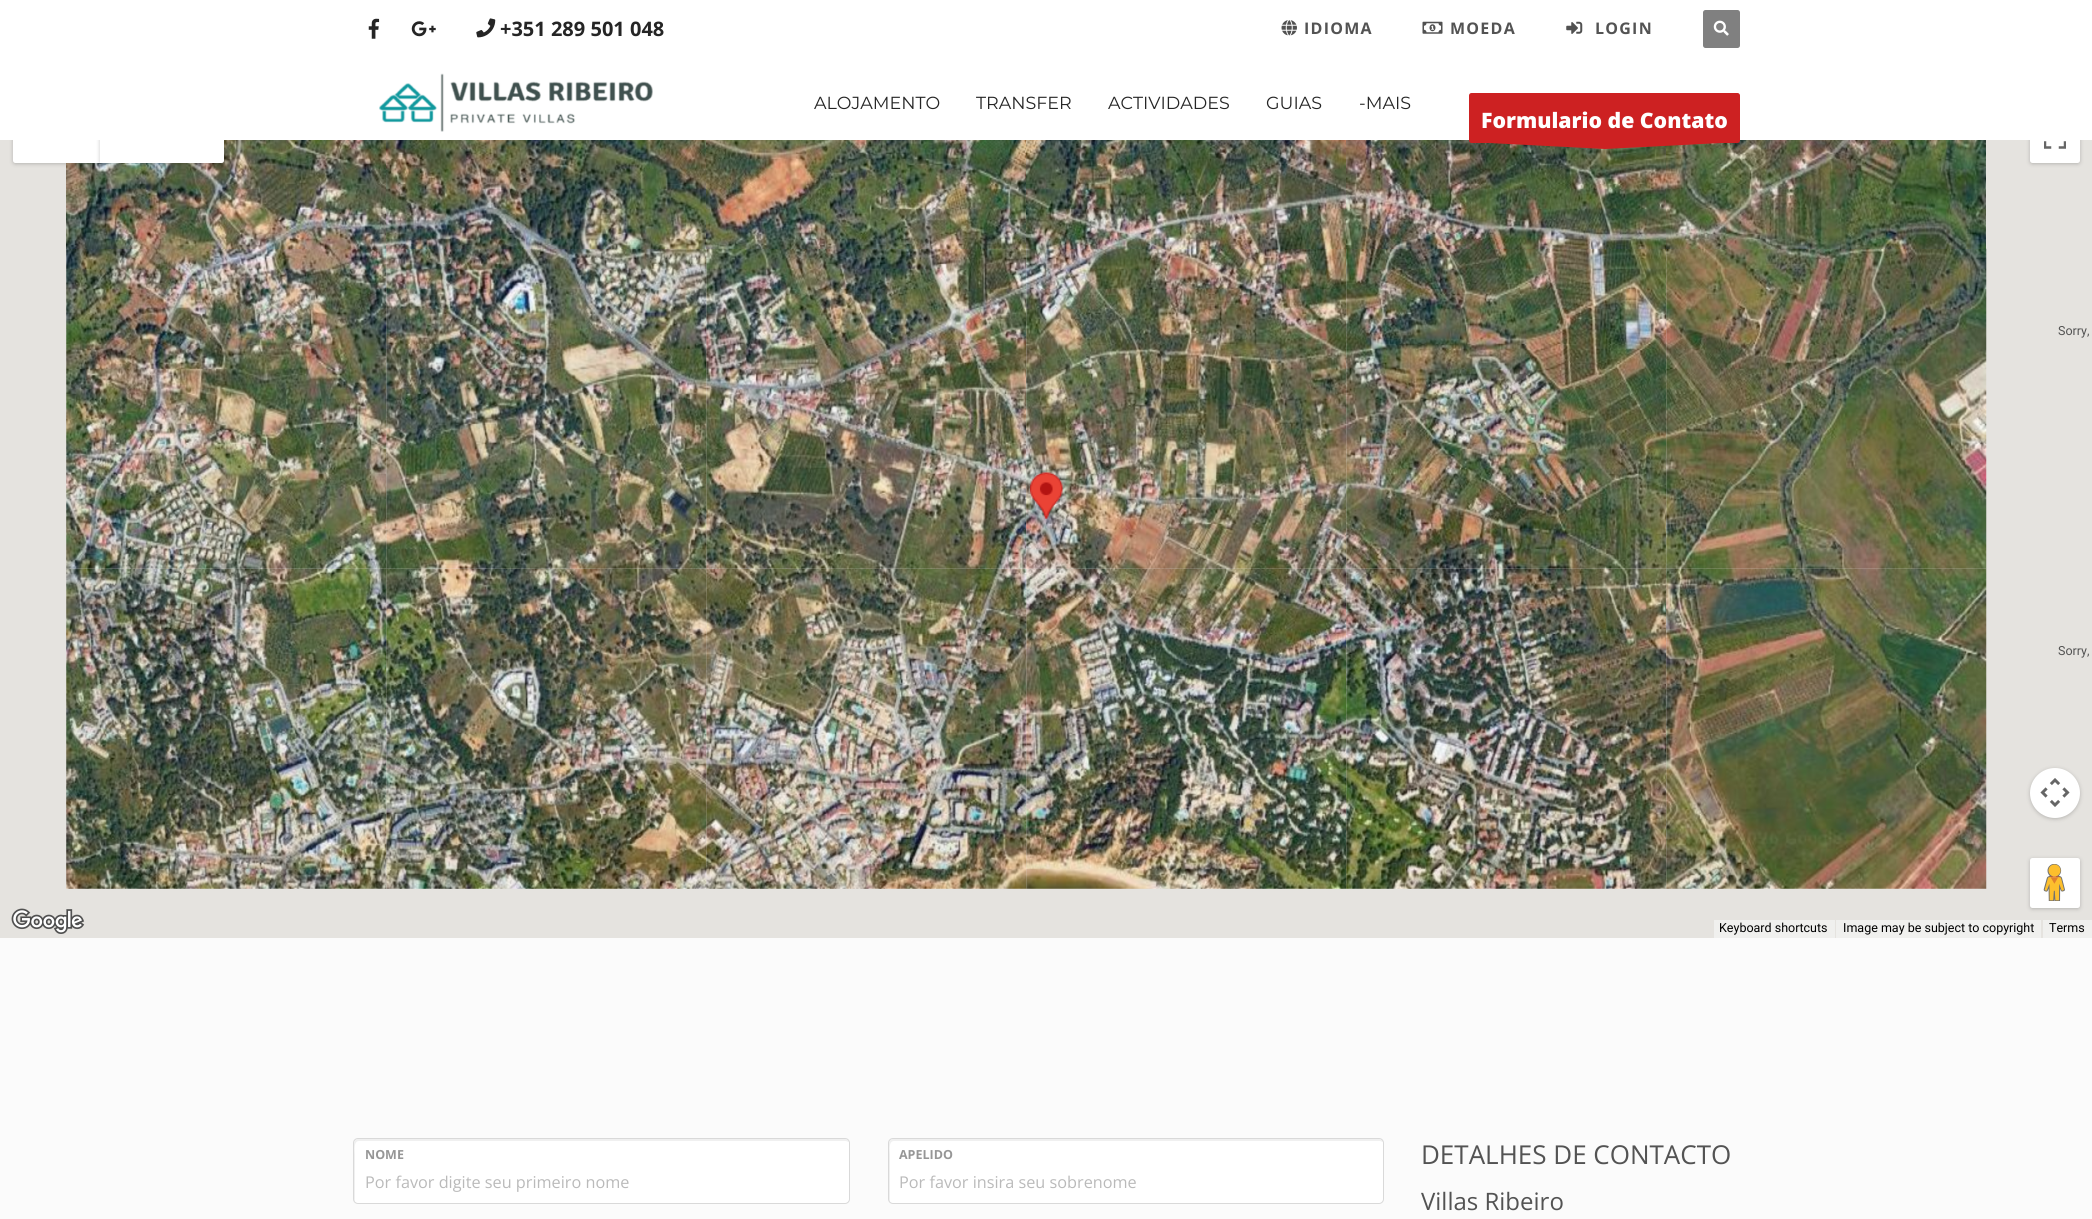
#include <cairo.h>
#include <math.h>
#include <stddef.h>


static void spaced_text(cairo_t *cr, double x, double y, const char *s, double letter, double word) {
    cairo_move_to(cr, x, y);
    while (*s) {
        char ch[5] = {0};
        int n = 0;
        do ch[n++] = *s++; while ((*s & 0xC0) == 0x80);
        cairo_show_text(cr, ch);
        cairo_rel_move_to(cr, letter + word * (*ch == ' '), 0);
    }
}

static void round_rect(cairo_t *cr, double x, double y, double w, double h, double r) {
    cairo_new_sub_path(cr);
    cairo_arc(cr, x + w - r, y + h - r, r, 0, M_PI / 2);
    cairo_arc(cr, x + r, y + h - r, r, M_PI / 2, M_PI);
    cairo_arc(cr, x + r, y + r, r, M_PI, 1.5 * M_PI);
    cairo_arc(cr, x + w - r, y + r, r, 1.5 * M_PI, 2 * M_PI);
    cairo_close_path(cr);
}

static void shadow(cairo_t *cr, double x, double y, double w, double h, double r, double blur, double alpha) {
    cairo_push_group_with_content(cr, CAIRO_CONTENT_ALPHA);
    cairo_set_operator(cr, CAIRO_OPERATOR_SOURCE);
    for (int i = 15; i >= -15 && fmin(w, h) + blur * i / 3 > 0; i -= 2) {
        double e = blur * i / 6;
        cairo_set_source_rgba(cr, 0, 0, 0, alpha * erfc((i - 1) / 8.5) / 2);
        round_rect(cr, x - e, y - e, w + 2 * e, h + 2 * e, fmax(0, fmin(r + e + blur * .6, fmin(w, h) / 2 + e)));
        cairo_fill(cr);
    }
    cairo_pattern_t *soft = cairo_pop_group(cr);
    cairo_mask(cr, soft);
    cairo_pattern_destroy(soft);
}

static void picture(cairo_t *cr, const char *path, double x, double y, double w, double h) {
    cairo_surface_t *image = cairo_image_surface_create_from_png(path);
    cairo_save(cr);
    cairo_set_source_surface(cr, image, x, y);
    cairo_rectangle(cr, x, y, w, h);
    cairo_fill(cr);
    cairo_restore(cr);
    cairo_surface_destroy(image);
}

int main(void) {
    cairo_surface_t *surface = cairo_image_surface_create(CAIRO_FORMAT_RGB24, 2092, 1219);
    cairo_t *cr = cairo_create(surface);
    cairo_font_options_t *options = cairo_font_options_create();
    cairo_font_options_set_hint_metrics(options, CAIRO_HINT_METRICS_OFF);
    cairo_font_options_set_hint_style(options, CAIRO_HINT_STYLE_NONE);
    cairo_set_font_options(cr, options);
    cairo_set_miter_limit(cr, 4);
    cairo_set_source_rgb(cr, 0.984, 0.984, 0.984);
    cairo_paint(cr);
    cairo_set_source_rgb(cr, 0.898, 0.89, 0.875);
    cairo_rectangle(cr, 0, 140, 2092, 798);
    cairo_fill(cr);
    picture(cr, "img12.png", 386, 140, 320, 109);
    picture(cr, "img26.png", 1026, 568, 321, 321);
    picture(cr, "img25.png", 706, 568, 321, 321);
    picture(cr, "img19.png", 706, 249, 321, 320);
    picture(cr, "img24.png", 386, 568, 321, 321);
    picture(cr, "img18.png", 386, 249, 321, 320);
    picture(cr, "img23.png", 66, 568, 321, 321);
    picture(cr, "img17.png", 66, 248, 321, 321);
    picture(cr, "img11.png", 66, 140, 320, 109);
    cairo_set_source_rgb(cr, 0, 0, 0);
    shadow(cr, 14, 115, 85, 48, 1, 2.5, 0.3);
    cairo_set_source_rgb(cr, 1, 1, 1);
    cairo_new_path(cr);
    cairo_move_to(cr, 15.5, 113);
    cairo_line_to(cr, 100, 113);
    cairo_line_to(cr, 100, 163);
    cairo_line_to(cr, 15.5, 163);
    cairo_curve_to(cr, 14, 163, 13, 162, 13, 160.5);
    cairo_line_to(cr, 13, 115.5);
    cairo_curve_to(cr, 13, 114, 14, 113, 15.5, 113);
    cairo_close_path(cr);
    cairo_fill(cr);
    cairo_set_source_rgb(cr, 0, 0, 0);
    shadow(cr, 101, 115, 122, 48, 1, 2.5, 0.3);
    cairo_set_source_rgb(cr, 1, 1, 1);
    cairo_new_path(cr);
    cairo_move_to(cr, 100, 113);
    cairo_line_to(cr, 221.5, 113);
    cairo_curve_to(cr, 223, 113, 224, 114, 224, 115.5);
    cairo_line_to(cr, 224, 160.5);
    cairo_curve_to(cr, 224, 162, 223, 163, 221.5, 163);
    cairo_line_to(cr, 100, 163);
    cairo_close_path(cr);
    cairo_fill(cr);
    cairo_set_source_rgb(cr, 0, 0, 0);
    shadow(cr, 2031, 115, 48, 48, 1, 2.5, 0.3);
    cairo_set_source_rgb(cr, 1, 1, 1);
    round_rect(cr, 2030, 113, 50, 50, 2.5);
    cairo_fill(cr);
    cairo_rectangle(cr, 0, 0, 2092, 140);
    cairo_fill(cr);
    picture(cr, "img1.png", 368, 18, 12, 21);
    picture(cr, "img2.png", 411, 21, 25, 16);
    picture(cr, "img3.png", 476, 18, 20, 20);
    cairo_select_font_face(cr, "Open Sans", CAIRO_FONT_SLANT_NORMAL, CAIRO_FONT_WEIGHT_BOLD);
    cairo_set_font_size(cr, 20);
    cairo_set_source_rgb(cr, 0.145, 0.145, 0.145);
    cairo_move_to(cr, 500, 36);
    cairo_show_text(cr, "+351 289 501 048");
    picture(cr, "img4.png", 1281, 20, 16, 16);
    cairo_set_font_size(cr, 16);
    cairo_set_source_rgb(cr, 0.325, 0.325, 0.325);
    spaced_text(cr, 1304, 34, "IDIOMA", 1.25, 0);
    picture(cr, "img5.png", 1422, 21, 21, 13);
    spaced_text(cr, 1450, 34, "MOEDA", 1.25, 0);
    picture(cr, "img6.png", 1566, 21, 17, 13);
    spaced_text(cr, 1595, 34, "LOGIN", 1.25, 0);
    cairo_set_source_rgb(cr, 0.502, 0.502, 0.502);
    round_rect(cr, 1703, 10, 37, 38, 2.5);
    cairo_fill(cr);
    picture(cr, "img7.png", 1713, 20, 16, 16);
    picture(cr, "img8.png", 379, 73, 274, 59);
    cairo_select_font_face(cr, "Montserrat", CAIRO_FONT_SLANT_NORMAL, CAIRO_FONT_WEIGHT_NORMAL);
    cairo_set_font_size(cr, 17.5);
    cairo_set_source_rgb(cr, 0.145, 0.145, 0.145);
    cairo_move_to(cr, 814, 109);
    cairo_show_text(cr, "ALOJAMENTO");
    cairo_move_to(cr, 976, 109);
    cairo_show_text(cr, "TRANSFER");
    cairo_move_to(cr, 1108, 109);
    cairo_show_text(cr, "ACTIVIDADES");
    cairo_move_to(cr, 1266, 109);
    cairo_show_text(cr, "GUIAS");
    cairo_move_to(cr, 1359, 109);
    cairo_show_text(cr, "-MAIS");
    picture(cr, "img15.png", 1346, 140, 320, 109);
    picture(cr, "img20.png", 1026, 249, 321, 320);
    picture(cr, "img21.png", 1346, 249, 321, 320);
    picture(cr, "img27.png", 1346, 568, 321, 321);
    picture(cr, "img22.png", 1666, 248, 321, 321);
    picture(cr, "img16.png", 1666, 140, 320, 109);
    cairo_set_source_rgb(cr, 0.804, 0.129, 0.133);
    round_rect(cr, 1469, 93, 271, 50, 2.5);
    cairo_fill(cr);
    cairo_select_font_face(cr, "Open Sans ExtraBold", CAIRO_FONT_SLANT_NORMAL, CAIRO_FONT_WEIGHT_NORMAL);
    cairo_set_font_size(cr, 21.25);
    cairo_set_source_rgb(cr, 1, 1, 1);
    cairo_move_to(cr, 1481, 128);
    cairo_show_text(cr, "Formulario de Contato");
    cairo_save(cr);
    cairo_rectangle(cr, 1469, 143, 271, 6);
    cairo_clip(cr);
    cairo_set_source_rgb(cr, 0.804, 0.129, 0.133);
    cairo_new_path(cr);
    cairo_move_to(cr, 1740, 142);
    cairo_line_to(cr, 1605, 149);
    cairo_line_to(cr, 1469, 142);
    cairo_close_path(cr);
    cairo_fill(cr);
    cairo_restore(cr);
    picture(cr, "img9.png", 2044, 141, 22, 8);
    picture(cr, "img10.png", 1030, 472, 33, 47);
    picture(cr, "img13.png", 706, 140, 320, 109);
    picture(cr, "img14.png", 1026, 140, 320, 109);
    cairo_select_font_face(cr, "Roboto", CAIRO_FONT_SLANT_NORMAL, CAIRO_FONT_WEIGHT_NORMAL);
    cairo_set_font_size(cr, 12.5);
    cairo_set_source_rgb(cr, 0.325, 0.325, 0.325);
    cairo_move_to(cr, 2058, 335);
    cairo_show_text(cr, "Sorry,");
    picture(cr, "img28.png", 1666, 568, 321, 321);
    cairo_move_to(cr, 2058, 655);
    cairo_show_text(cr, "Sorry,");
    cairo_set_source_rgb(cr, 0, 0, 0);
    shadow(cr, 2031, 770, 48, 48, 24, 2.5, 0.3);
    cairo_set_source_rgb(cr, 1, 1, 1);
    cairo_arc(cr, 2055, 793, 25, 0, 2 * M_PI);
    cairo_fill(cr);
    picture(cr, "img29.png", 2040, 778, 30, 29);
    cairo_set_source_rgb(cr, 0, 0, 0);
    shadow(cr, 2031, 860, 48, 48, 1, 2.5, 0.3);
    cairo_set_source_rgb(cr, 1, 1, 1);
    round_rect(cr, 2030, 858, 50, 50, 2.5);
    cairo_fill(cr);
    picture(cr, "img30.png", 2043, 864, 22, 37);
    picture(cr, "img31.png", 11, 908, 74, 26);
    cairo_set_source_rgb(cr, 0.941, 0.941, 0.933);
    cairo_rectangle(cr, 1714, 920, 121, 18);
    cairo_fill(cr);
    cairo_set_source_rgb(cr, 0, 0, 0);
    cairo_move_to(cr, 1719, 932);
    cairo_show_text(cr, "Keyboard shortcuts");
    cairo_set_source_rgb(cr, 0.941, 0.941, 0.933);
    cairo_rectangle(cr, 1836, 920, 205, 18);
    cairo_fill(cr);
    cairo_set_source_rgb(cr, 0, 0, 0);
    cairo_move_to(cr, 1843, 932);
    cairo_show_text(cr, "Image may be subject to copyright");
    cairo_set_source_rgb(cr, 0.941, 0.941, 0.933);
    cairo_rectangle(cr, 2043, 920, 49, 18);
    cairo_fill(cr);
    cairo_set_source_rgb(cr, 0, 0, 0);
    cairo_move_to(cr, 2049, 932);
    cairo_show_text(cr, "Terms");
    cairo_set_source_rgb(cr, 1, 1, 1);
    round_rect(cr, 354, 1139, 495, 64, 4);
    cairo_fill(cr);
    cairo_set_source_rgb(cr, 0.941, 0.941, 0.941);
    cairo_new_path(cr);
    cairo_move_to(cr, 359, 1141);
    cairo_line_to(cr, 846, 1141);
    cairo_line_to(cr, 849, 1142);
    cairo_curve_to(cr, 849, 1141, 847, 1139, 845, 1139);
    cairo_line_to(cr, 358, 1139);
    cairo_curve_to(cr, 356, 1139, 354, 1141, 354, 1143);
    cairo_line_to(cr, 354, 1199);
    cairo_curve_to(cr, 354, 1200, 354, 1201, 355, 1202);
    cairo_line_to(cr, 355, 1154);
    cairo_curve_to(cr, 355, 1152, 353, 1141, 359, 1141);
    cairo_close_path(cr);
    cairo_fill(cr);
    round_rect(cr, 353.5, 1138.5, 496, 65, 4.5);
    cairo_set_source_rgb(cr, 0.851, 0.851, 0.851);
    cairo_set_line_width(cr, 1);
    cairo_stroke(cr);
    cairo_select_font_face(cr, "Open Sans", CAIRO_FONT_SLANT_NORMAL, CAIRO_FONT_WEIGHT_BOLD);
    cairo_set_source_rgb(cr, 0.588, 0.588, 0.588);
    cairo_move_to(cr, 365, 1159);
    cairo_show_text(cr, "NOME");
    cairo_select_font_face(cr, "Open Sans", CAIRO_FONT_SLANT_NORMAL, CAIRO_FONT_WEIGHT_NORMAL);
    cairo_set_font_size(cr, 16.25);
    cairo_set_source_rgb(cr, 0.729, 0.729, 0.729);
    cairo_move_to(cr, 365, 1188);
    cairo_show_text(cr, "Por favor digite seu primeiro nome");
    cairo_set_source_rgb(cr, 1, 1, 1);
    round_rect(cr, 889, 1139, 494, 64, 4);
    cairo_fill(cr);
    cairo_set_source_rgb(cr, 0.941, 0.941, 0.941);
    cairo_new_path(cr);
    cairo_move_to(cr, 894, 1141);
    cairo_line_to(cr, 1380, 1141);
    cairo_line_to(cr, 1383, 1142);
    cairo_curve_to(cr, 1383, 1141, 1381, 1139, 1379, 1139);
    cairo_line_to(cr, 893, 1139);
    cairo_curve_to(cr, 891, 1139, 889, 1141, 889, 1143);
    cairo_line_to(cr, 889, 1199);
    cairo_curve_to(cr, 889, 1200, 889, 1201, 890, 1202);
    cairo_line_to(cr, 890, 1154);
    cairo_curve_to(cr, 890, 1152, 888, 1141, 894, 1141);
    cairo_close_path(cr);
    cairo_fill(cr);
    round_rect(cr, 888.5, 1138.5, 495, 65, 4.5);
    cairo_set_source_rgb(cr, 0.851, 0.851, 0.851);
    cairo_stroke(cr);
    cairo_select_font_face(cr, "Open Sans", CAIRO_FONT_SLANT_NORMAL, CAIRO_FONT_WEIGHT_BOLD);
    cairo_set_font_size(cr, 12.5);
    cairo_set_source_rgb(cr, 0.588, 0.588, 0.588);
    cairo_move_to(cr, 899, 1159);
    cairo_show_text(cr, "APELIDO");
    cairo_select_font_face(cr, "Open Sans", CAIRO_FONT_SLANT_NORMAL, CAIRO_FONT_WEIGHT_NORMAL);
    cairo_set_font_size(cr, 16.25);
    cairo_set_source_rgb(cr, 0.729, 0.729, 0.729);
    cairo_move_to(cr, 899, 1188);
    cairo_show_text(cr, "Por favor insira seu sobrenome");
    cairo_set_font_size(cr, 26);
    cairo_set_source_rgb(cr, 0.325, 0.325, 0.325);
    cairo_move_to(cr, 1421, 1164);
    cairo_show_text(cr, "DETALHES DE CONTACTO");
    cairo_set_font_size(cr, 24);
    cairo_move_to(cr, 1421, 1210);
    cairo_show_text(cr, "Villas Ribeiro");
    cairo_surface_write_to_png(surface, "page.png");
    cairo_font_options_destroy(options);
    cairo_destroy(cr);
    cairo_surface_destroy(surface);
    return 0;
}
